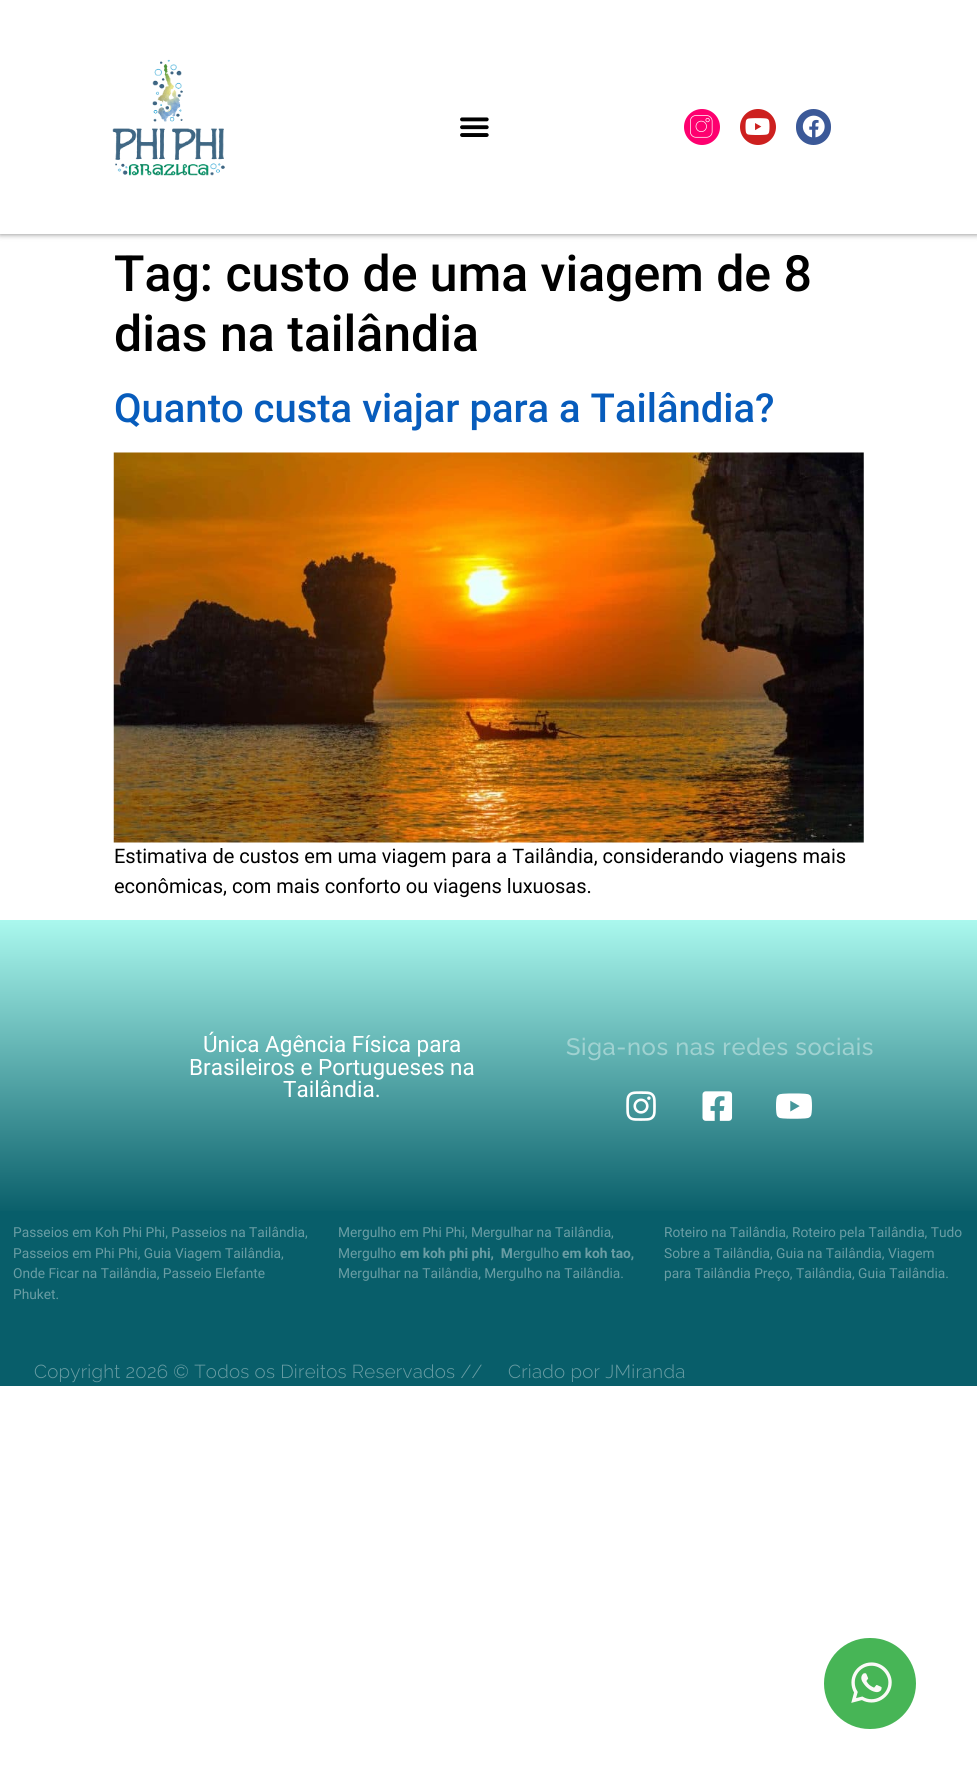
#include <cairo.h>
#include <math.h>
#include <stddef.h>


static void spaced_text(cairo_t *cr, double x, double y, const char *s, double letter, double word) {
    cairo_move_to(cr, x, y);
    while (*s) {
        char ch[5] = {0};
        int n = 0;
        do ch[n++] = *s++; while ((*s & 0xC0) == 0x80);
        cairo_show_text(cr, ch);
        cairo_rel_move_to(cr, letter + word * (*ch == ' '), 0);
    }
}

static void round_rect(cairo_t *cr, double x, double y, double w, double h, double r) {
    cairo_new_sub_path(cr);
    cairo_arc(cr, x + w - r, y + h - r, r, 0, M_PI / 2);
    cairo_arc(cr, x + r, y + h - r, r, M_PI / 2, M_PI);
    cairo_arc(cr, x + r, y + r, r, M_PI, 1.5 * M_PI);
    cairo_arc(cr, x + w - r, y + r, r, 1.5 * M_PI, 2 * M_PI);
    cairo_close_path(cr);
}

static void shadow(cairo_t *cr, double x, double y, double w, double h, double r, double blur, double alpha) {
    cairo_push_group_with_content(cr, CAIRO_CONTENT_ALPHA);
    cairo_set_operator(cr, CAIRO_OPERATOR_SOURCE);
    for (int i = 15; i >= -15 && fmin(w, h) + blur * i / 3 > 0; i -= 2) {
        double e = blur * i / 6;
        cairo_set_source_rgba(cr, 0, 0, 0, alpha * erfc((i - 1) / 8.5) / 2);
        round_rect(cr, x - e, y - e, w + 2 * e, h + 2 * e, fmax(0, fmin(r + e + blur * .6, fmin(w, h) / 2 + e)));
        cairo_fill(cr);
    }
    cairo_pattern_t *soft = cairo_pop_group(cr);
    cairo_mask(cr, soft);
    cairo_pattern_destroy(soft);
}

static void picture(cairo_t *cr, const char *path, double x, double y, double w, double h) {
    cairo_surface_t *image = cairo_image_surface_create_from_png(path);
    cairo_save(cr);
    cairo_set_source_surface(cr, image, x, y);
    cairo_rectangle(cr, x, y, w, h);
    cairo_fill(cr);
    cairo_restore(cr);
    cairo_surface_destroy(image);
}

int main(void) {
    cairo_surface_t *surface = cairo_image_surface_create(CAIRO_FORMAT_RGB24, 977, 1768);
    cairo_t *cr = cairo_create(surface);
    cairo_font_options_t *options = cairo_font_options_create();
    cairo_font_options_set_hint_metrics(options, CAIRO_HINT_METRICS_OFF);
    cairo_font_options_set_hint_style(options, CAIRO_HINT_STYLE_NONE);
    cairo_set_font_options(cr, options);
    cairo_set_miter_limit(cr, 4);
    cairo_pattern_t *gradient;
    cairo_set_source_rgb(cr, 1, 1, 1);
    cairo_paint(cr);
    cairo_set_source_rgb(cr, 0, 0, 0);
    shadow(cr, 0, 0, 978, 234, 0, 3, 0.5);
    cairo_set_source_rgb(cr, 1, 1, 1);
    cairo_rectangle(cr, 0, 0, 977, 234);
    cairo_fill(cr);
    picture(cr, "img1.png", 112, 59, 113, 117);
    picture(cr, "img2.png", 460, 117, 29, 20);
    cairo_set_source_rgb(cr, 0.996, 0, 0.435);
    cairo_arc(cr, 702, 127, 18, 0, 2 * M_PI);
    cairo_fill(cr);
    picture(cr, "img3.png", 690, 115, 23, 23);
    cairo_set_source_rgb(cr, 0.804, 0.125, 0.122);
    cairo_arc(cr, 758, 127, 18, 0, 2 * M_PI);
    cairo_fill(cr);
    picture(cr, "img4.png", 745, 118, 25, 17);
    cairo_set_source_rgb(cr, 0.231, 0.349, 0.596);
    round_rect(cr, 796, 109, 35, 36, 17.5);
    cairo_fill(cr);
    picture(cr, "img5.png", 802, 115, 23, 23);
    cairo_select_font_face(cr, "Roboto Medium", CAIRO_FONT_SLANT_NORMAL, CAIRO_FONT_WEIGHT_NORMAL);
    cairo_set_font_size(cr, 50);
    cairo_set_source_rgb(cr, 0, 0, 0);
    cairo_move_to(cr, 114, 291);
    cairo_show_text(cr, "Tag: custo de uma viagem de 8");
    cairo_move_to(cr, 114, 351);
    cairo_show_text(cr, "dias na tailândia");
    cairo_set_font_size(cr, 40);
    cairo_set_source_rgb(cr, 0.031, 0.361, 0.737);
    cairo_move_to(cr, 114, 422);
    cairo_show_text(cr, "Quanto custa viajar para a Tailândia?");
    picture(cr, "img6.png", 113, 452, 751, 391);
    cairo_select_font_face(cr, "Roboto", CAIRO_FONT_SLANT_NORMAL, CAIRO_FONT_WEIGHT_NORMAL);
    cairo_set_font_size(cr, 20);
    cairo_set_source_rgb(cr, 0, 0, 0);
    cairo_move_to(cr, 114, 863);
    cairo_show_text(cr, "Estimativa de custos em uma viagem para a Tailândia, considerando viagens mais");
    cairo_move_to(cr, 114, 893);
    cairo_show_text(cr, "econômicas, com mais conforto ou viagens luxuosas.");
    gradient = cairo_pattern_create_linear(489, 1211, 489, 920);
    cairo_pattern_add_color_stop_rgba(gradient, 0, 0.043, 0.376, 0.42, 1);
    cairo_pattern_add_color_stop_rgba(gradient, 1, 0.667, 0.973, 0.933, 1);
    cairo_set_source(cr, gradient);
    cairo_pattern_destroy(gradient);
    cairo_rectangle(cr, 0, 920, 977, 291);
    cairo_fill(cr);
    cairo_set_font_size(cr, 22.5);
    cairo_set_source_rgb(cr, 1, 1, 1);
    cairo_move_to(cr, 203, 1052);
    cairo_show_text(cr, "Única Agência Física para");
    cairo_move_to(cr, 189, 1075);
    cairo_show_text(cr, "Brasileiros e Portugueses na");
    cairo_move_to(cr, 283, 1097);
    cairo_show_text(cr, "Tailândia.");
    cairo_select_font_face(cr, "Raleway Medium", CAIRO_FONT_SLANT_NORMAL, CAIRO_FONT_WEIGHT_NORMAL);
    cairo_set_font_size(cr, 23.75);
    cairo_set_source_rgb(cr, 0.627, 0.824, 0.82);
    spaced_text(cr, 566, 1055, "Siga-nos nas redes sociais", 0.6, 0);
    picture(cr, "img7.png", 626, 1091, 30, 30);
    picture(cr, "img8.png", 702, 1091, 31, 30);
    picture(cr, "img9.png", 776, 1093, 36, 26);
    cairo_set_source_rgb(cr, 0.035, 0.369, 0.416);
    cairo_rectangle(cr, 0, 1211, 977, 175);
    cairo_fill(cr);
    cairo_select_font_face(cr, "Roboto", CAIRO_FONT_SLANT_NORMAL, CAIRO_FONT_WEIGHT_NORMAL);
    cairo_set_font_size(cr, 13.75);
    cairo_set_source_rgb(cr, 0.412, 0.616, 0.643);
    cairo_move_to(cr, 13, 1237);
    cairo_show_text(cr, "Passeios em Koh Phi Phi, Passeios na Tailândia,");
    cairo_move_to(cr, 13, 1258);
    cairo_show_text(cr, "Passeios em Phi Phi, Guia Viagem Tailândia,");
    cairo_move_to(cr, 13, 1278);
    cairo_show_text(cr, "Onde Ficar na Tailândia, Passeio Elefante");
    cairo_move_to(cr, 13, 1299);
    cairo_show_text(cr, "Phuket.");
    cairo_move_to(cr, 338, 1237);
    cairo_show_text(cr, "Mergulho em Phi Phi, Mergulhar na Tailândia,");
    cairo_move_to(cr, 338, 1258);
    cairo_show_text(cr, "Mergulho");
    cairo_select_font_face(cr, "Roboto", CAIRO_FONT_SLANT_NORMAL, CAIRO_FONT_WEIGHT_BOLD);
    cairo_move_to(cr, 400, 1258);
    cairo_show_text(cr, "em koh phi phi,  M");
    cairo_select_font_face(cr, "Roboto", CAIRO_FONT_SLANT_NORMAL, CAIRO_FONT_WEIGHT_NORMAL);
    cairo_move_to(cr, 513, 1258);
    cairo_show_text(cr, "ergulho");
    cairo_select_font_face(cr, "Roboto", CAIRO_FONT_SLANT_NORMAL, CAIRO_FONT_WEIGHT_BOLD);
    cairo_move_to(cr, 562, 1258);
    cairo_show_text(cr, "em koh tao,");
    cairo_select_font_face(cr, "Roboto", CAIRO_FONT_SLANT_NORMAL, CAIRO_FONT_WEIGHT_NORMAL);
    cairo_move_to(cr, 338, 1278);
    cairo_show_text(cr, "Mergulhar na Tailândia, Mergulho na Tailândia.");
    cairo_move_to(cr, 664, 1237);
    cairo_show_text(cr, "Roteiro na Tailândia, Roteiro pela Tailândia, Tudo");
    cairo_move_to(cr, 664, 1258);
    cairo_show_text(cr, "Sobre a Tailândia, Guia na Tailândia, Viagem");
    cairo_move_to(cr, 664, 1278);
    cairo_show_text(cr, "para Tailândia Preço, Tailândia, Guia Tailândia.");
    cairo_set_source_rgb(cr, 0.278, 0.71, 0.337);
    round_rect(cr, 824, 1638, 92, 91, 45.5);
    cairo_fill(cr);
    picture(cr, "img10.png", 851, 1662, 41, 41);
    cairo_select_font_face(cr, "Raleway Light", CAIRO_FONT_SLANT_NORMAL, CAIRO_FONT_WEIGHT_NORMAL);
    cairo_set_font_size(cr, 18.75);
    cairo_set_source_rgb(cr, 0.412, 0.616, 0.643);
    spaced_text(cr, 34, 1378, "Copyright 2026 © Todos os Direitos Reservados //", 0.25, 0);
    spaced_text(cr, 508, 1378, "Criado por JMiranda", 0.25, 0);
    cairo_surface_write_to_png(surface, "page.png");
    cairo_font_options_destroy(options);
    cairo_destroy(cr);
    cairo_surface_destroy(surface);
    return 0;
}
